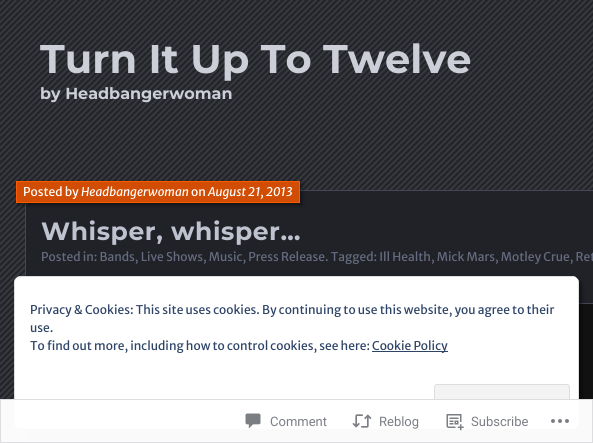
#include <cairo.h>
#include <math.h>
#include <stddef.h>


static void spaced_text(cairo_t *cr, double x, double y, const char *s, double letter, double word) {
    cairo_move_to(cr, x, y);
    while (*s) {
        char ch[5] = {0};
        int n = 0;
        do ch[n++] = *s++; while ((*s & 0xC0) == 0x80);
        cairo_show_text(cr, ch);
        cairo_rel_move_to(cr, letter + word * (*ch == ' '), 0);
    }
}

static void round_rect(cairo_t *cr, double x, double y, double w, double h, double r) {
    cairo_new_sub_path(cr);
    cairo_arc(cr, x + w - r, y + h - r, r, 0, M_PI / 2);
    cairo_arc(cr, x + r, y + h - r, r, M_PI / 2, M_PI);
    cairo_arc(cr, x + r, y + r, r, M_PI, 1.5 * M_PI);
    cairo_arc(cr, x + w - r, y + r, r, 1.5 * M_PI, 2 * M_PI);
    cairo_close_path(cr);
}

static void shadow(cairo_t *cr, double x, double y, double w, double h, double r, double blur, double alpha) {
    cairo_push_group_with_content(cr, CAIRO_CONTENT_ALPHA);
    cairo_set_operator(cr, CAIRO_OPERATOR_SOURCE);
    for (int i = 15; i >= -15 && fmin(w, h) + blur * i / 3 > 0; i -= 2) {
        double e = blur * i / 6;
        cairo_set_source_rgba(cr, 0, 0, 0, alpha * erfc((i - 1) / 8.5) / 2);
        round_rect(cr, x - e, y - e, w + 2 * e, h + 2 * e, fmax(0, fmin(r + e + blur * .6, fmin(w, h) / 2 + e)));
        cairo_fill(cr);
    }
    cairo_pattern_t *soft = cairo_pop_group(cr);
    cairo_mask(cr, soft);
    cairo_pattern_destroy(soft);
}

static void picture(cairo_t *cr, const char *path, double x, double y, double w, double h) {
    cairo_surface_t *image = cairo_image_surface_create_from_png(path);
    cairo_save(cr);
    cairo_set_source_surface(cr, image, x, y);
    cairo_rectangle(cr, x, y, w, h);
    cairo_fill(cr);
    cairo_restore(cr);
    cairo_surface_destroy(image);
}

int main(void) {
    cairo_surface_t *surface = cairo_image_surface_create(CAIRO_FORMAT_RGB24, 593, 443);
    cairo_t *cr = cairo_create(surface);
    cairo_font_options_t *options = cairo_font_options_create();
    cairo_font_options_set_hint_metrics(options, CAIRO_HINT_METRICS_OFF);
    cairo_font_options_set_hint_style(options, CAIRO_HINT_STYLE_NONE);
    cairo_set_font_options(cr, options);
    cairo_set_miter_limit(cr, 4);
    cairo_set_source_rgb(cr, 0.125, 0.133, 0.157);
    cairo_paint(cr);
    picture(cr, "img1.png", 0, 0, 593, 443);
    cairo_select_font_face(cr, "Montserrat Thin", CAIRO_FONT_SLANT_NORMAL, CAIRO_FONT_WEIGHT_NORMAL);
    cairo_set_font_size(cr, 40);
    cairo_set_source_rgb(cr, 0.8, 0.812, 0.843);
    cairo_move_to(cr, 40, 73);
    cairo_show_text(cr, "Turn It Up To Twelve");
    cairo_set_font_size(cr, 16);
    cairo_move_to(cr, 40, 99);
    cairo_show_text(cr, "by Headbangerwoman");
    cairo_set_source_rgb(cr, 0.067, 0.067, 0.067);
    cairo_rectangle(cr, 26, 304, 567, 139);
    cairo_fill(cr);
    cairo_rectangle(cr, 25.5, 190.5, 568, 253);
    cairo_set_source_rgb(cr, 0.267, 0.282, 0.333);
    cairo_set_line_width(cr, 1);
    cairo_stroke(cr);
    cairo_set_source_rgb(cr, 0.125, 0.133, 0.157);
    cairo_rectangle(cr, 26, 191, 567, 112);
    cairo_fill(cr);
    cairo_set_source_rgb(cr, 0.267, 0.282, 0.333);
    cairo_rectangle(cr, 579, 303, 14, 1);
    cairo_fill(cr);
    cairo_set_source_rgb(cr, 0, 0, 0);
    shadow(cr, 18, 183, 284, 22, 0, 2, 0.45);
    cairo_set_source_rgb(cr, 0.824, 0.302, 0.016);
    cairo_rectangle(cr, 16.5, 181.5, 283, 21);
    cairo_fill_preserve(cr);
    cairo_set_source_rgb(cr, 1, 0.353, 0);
    cairo_stroke(cr);
    cairo_select_font_face(cr, "Merriweather Sans", CAIRO_FONT_SLANT_NORMAL, CAIRO_FONT_WEIGHT_NORMAL);
    cairo_set_font_size(cr, 12);
    cairo_set_source_rgb(cr, 1, 1, 1);
    cairo_move_to(cr, 23, 196);
    cairo_show_text(cr, "Posted by");
    cairo_select_font_face(cr, "Merriweather Sans", CAIRO_FONT_SLANT_ITALIC, CAIRO_FONT_WEIGHT_NORMAL);
    cairo_move_to(cr, 81, 196);
    cairo_show_text(cr, "Headbangerwoman");
    cairo_select_font_face(cr, "Merriweather Sans", CAIRO_FONT_SLANT_NORMAL, CAIRO_FONT_WEIGHT_NORMAL);
    cairo_move_to(cr, 191, 196);
    cairo_show_text(cr, "on");
    cairo_select_font_face(cr, "Merriweather Sans", CAIRO_FONT_SLANT_ITALIC, CAIRO_FONT_WEIGHT_NORMAL);
    cairo_move_to(cr, 208, 196);
    cairo_show_text(cr, "August 21, 2013");
    cairo_select_font_face(cr, "Montserrat Thin", CAIRO_FONT_SLANT_NORMAL, CAIRO_FONT_WEIGHT_NORMAL);
    cairo_set_font_size(cr, 25);
    cairo_set_source_rgb(cr, 0.749, 0.765, 0.812);
    spaced_text(cr, 41, 240, "Whisper, whisper…", 0.6, 0);
    cairo_select_font_face(cr, "Merriweather Sans", CAIRO_FONT_SLANT_NORMAL, CAIRO_FONT_WEIGHT_NORMAL);
    cairo_set_font_size(cr, 12);
    cairo_set_source_rgb(cr, 0.4, 0.424, 0.498);
    cairo_move_to(cr, 41, 261);
    cairo_show_text(cr, "Posted in: Bands, Live Shows, Music, Press Release. Tagged: Ill Health, Mick Mars, Motley Crue, Ret");
    cairo_set_source_rgb(cr, 0, 0, 0);
    shadow(cr, 17, 279, 565, 153, 7, 2, 0.45);
    cairo_set_source_rgb(cr, 1, 1, 1);
    round_rect(cr, 14, 276, 565, 153, 7);
    cairo_fill(cr);
    cairo_set_source_rgb(cr, 0.871, 0.871, 0.871);
    cairo_set_fill_rule(cr, CAIRO_FILL_RULE_EVEN_ODD);
    cairo_new_path(cr);
    cairo_move_to(cr, 14, 283);
    cairo_line_to(cr, 14, 422);
    cairo_curve_to(cr, 14, 423, 14, 425, 15, 426);
    cairo_line_to(cr, 15, 279);
    cairo_close_path(cr);
    cairo_move_to(cr, 21, 276);
    cairo_line_to(cr, 17, 277);
    cairo_line_to(cr, 576, 277);
    cairo_line_to(cr, 572, 276);
    cairo_close_path(cr);
    cairo_move_to(cr, 579, 283);
    cairo_line_to(cr, 578, 279);
    cairo_line_to(cr, 578, 426);
    cairo_curve_to(cr, 579, 425, 579, 423, 579, 422);
    cairo_close_path(cr);
    cairo_move_to(cr, 572, 429);
    cairo_line_to(cr, 576, 428);
    cairo_line_to(cr, 17, 428);
    cairo_line_to(cr, 21, 429);
    cairo_close_path(cr);
    cairo_fill(cr);
    cairo_set_source_rgb(cr, 0.18, 0.267, 0.404);
    cairo_move_to(cr, 30, 314);
    cairo_show_text(cr, "Privacy & Cookies: This site uses cookies. By continuing to use this website, you agree to their");
    cairo_move_to(cr, 30, 332);
    cairo_show_text(cr, "use.");
    cairo_move_to(cr, 30, 350);
    cairo_show_text(cr, "To find out more, including how to control cookies, see here:");
    cairo_rectangle(cr, 372, 351, 76, 1);
    cairo_fill(cr);
    cairo_move_to(cr, 372, 350);
    cairo_show_text(cr, "Cookie Policy");
    cairo_set_source_rgb(cr, 0.953, 0.953, 0.953);
    round_rect(cr, 434.5, 384.5, 135, 35, 2.5);
    cairo_fill_preserve(cr);
    cairo_set_source_rgb(cr, 0.871, 0.871, 0.871);
    cairo_stroke(cr);
    cairo_set_source_rgba(cr, 1, 1, 1, 0.98);
    cairo_rectangle(cr, 0, 399, 593, 44);
    cairo_fill(cr);
    cairo_rectangle(cr, 0.5, 399.5, 592, 43);
    cairo_set_source_rgba(cr, 0.863, 0.863, 0.871, 0.98);
    cairo_stroke(cr);
    picture(cr, "img2.png", 245, 413, 16, 16);
    cairo_select_font_face(cr, "Roboto", CAIRO_FONT_SLANT_NORMAL, CAIRO_FONT_WEIGHT_NORMAL);
    cairo_set_font_size(cr, 13);
    cairo_set_source_rgb(cr, 0.482, 0.498, 0.522);
    cairo_move_to(cr, 270, 426);
    cairo_show_text(cr, "Comment");
    picture(cr, "img3.png", 352, 414, 20, 14);
    cairo_move_to(cr, 379, 426);
    cairo_show_text(cr, "Reblog");
    picture(cr, "img4.png", 446, 414, 18, 17);
    cairo_move_to(cr, 471, 426);
    cairo_show_text(cr, "Subscribe");
    picture(cr, "img5.png", 551, 419, 18, 4);
    cairo_surface_write_to_png(surface, "page.png");
    cairo_font_options_destroy(options);
    cairo_destroy(cr);
    cairo_surface_destroy(surface);
    return 0;
}
